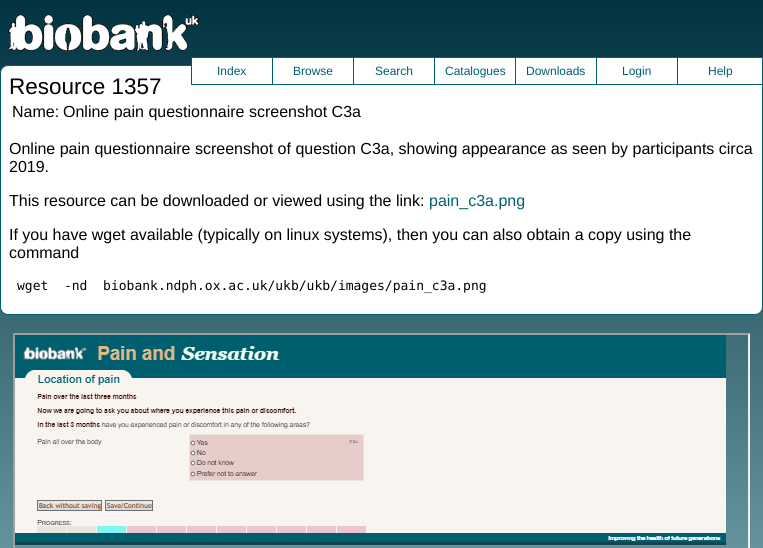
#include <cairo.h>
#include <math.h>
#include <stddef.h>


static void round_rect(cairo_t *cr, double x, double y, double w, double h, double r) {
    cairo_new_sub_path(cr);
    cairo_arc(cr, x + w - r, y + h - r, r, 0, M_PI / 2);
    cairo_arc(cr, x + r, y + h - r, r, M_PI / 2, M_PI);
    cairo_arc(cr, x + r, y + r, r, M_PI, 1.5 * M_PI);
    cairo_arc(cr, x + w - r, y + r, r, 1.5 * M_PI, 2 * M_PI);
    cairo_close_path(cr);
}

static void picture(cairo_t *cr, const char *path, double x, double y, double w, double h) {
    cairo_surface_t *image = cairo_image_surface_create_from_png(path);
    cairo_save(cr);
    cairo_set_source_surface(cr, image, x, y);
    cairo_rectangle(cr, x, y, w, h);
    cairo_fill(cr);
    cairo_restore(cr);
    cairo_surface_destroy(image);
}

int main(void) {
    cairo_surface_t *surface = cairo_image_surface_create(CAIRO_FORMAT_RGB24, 763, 548);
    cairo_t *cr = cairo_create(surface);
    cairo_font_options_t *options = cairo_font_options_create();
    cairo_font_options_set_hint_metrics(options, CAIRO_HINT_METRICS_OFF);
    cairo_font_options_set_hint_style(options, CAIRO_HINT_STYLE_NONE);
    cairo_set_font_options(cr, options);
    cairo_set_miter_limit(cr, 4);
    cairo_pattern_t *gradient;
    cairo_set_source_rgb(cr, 1, 1, 1);
    cairo_paint(cr);
    gradient = cairo_pattern_create_linear(0, 0, 0, 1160);
    cairo_pattern_add_color_stop_rgba(gradient, 0, 0, 0.196, 0.255, 1);
    cairo_pattern_add_color_stop_rgba(gradient, 1, 0.843, 1, 1, 1);
    cairo_set_source(cr, gradient);
    cairo_pattern_destroy(gradient);
    cairo_rectangle(cr, 0, 0, 763, 548);
    cairo_fill(cr);
    picture(cr, "img1.png", 8, 14, 191, 37);
    cairo_set_source_rgb(cr, 0, 0.373, 0.435);
    cairo_rectangle(cr, 191, 57, 486, 1);
    cairo_fill(cr);
    cairo_set_source_rgb(cr, 1, 1, 1);
    round_rect(cr, 0.5, 65.5, 762, 249, 7.5);
    cairo_fill_preserve(cr);
    cairo_set_source_rgb(cr, 0, 0.373, 0.435);
    cairo_set_line_width(cr, 1);
    cairo_stroke(cr);
    cairo_rectangle(cr, 191, 84, 486, 1);
    cairo_fill(cr);
    cairo_rectangle(cr, 191, 57, 1, 28);
    cairo_fill(cr);
    cairo_set_source_rgb(cr, 1, 1, 1);
    cairo_rectangle(cr, 192, 58, 80, 8);
    cairo_fill(cr);
    cairo_select_font_face(cr, "Liberation Sans", CAIRO_FONT_SLANT_NORMAL, CAIRO_FONT_WEIGHT_NORMAL);
    cairo_set_font_size(cr, 12);
    cairo_set_source_rgb(cr, 0, 0.373, 0.435);
    cairo_move_to(cr, 217, 75);
    cairo_show_text(cr, "Index");
    cairo_rectangle(cr, 272, 57, 1, 28);
    cairo_fill(cr);
    cairo_set_source_rgb(cr, 1, 1, 1);
    cairo_rectangle(cr, 273, 58, 80, 8);
    cairo_fill(cr);
    cairo_set_source_rgb(cr, 0, 0.373, 0.435);
    cairo_move_to(cr, 293, 75);
    cairo_show_text(cr, "Browse");
    cairo_rectangle(cr, 353, 57, 1, 28);
    cairo_fill(cr);
    cairo_set_source_rgb(cr, 1, 1, 1);
    cairo_rectangle(cr, 354, 58, 80, 8);
    cairo_fill(cr);
    cairo_set_source_rgb(cr, 0, 0.373, 0.435);
    cairo_move_to(cr, 375, 75);
    cairo_show_text(cr, "Search");
    cairo_rectangle(cr, 434, 57, 1, 28);
    cairo_fill(cr);
    cairo_set_source_rgb(cr, 1, 1, 1);
    cairo_rectangle(cr, 435, 58, 80, 8);
    cairo_fill(cr);
    cairo_set_source_rgb(cr, 0, 0.373, 0.435);
    cairo_move_to(cr, 445, 75);
    cairo_show_text(cr, "Catalogues");
    cairo_rectangle(cr, 515, 57, 1, 28);
    cairo_fill(cr);
    cairo_set_source_rgb(cr, 1, 1, 1);
    cairo_rectangle(cr, 516, 58, 80, 8);
    cairo_fill(cr);
    cairo_set_source_rgb(cr, 0, 0.373, 0.435);
    cairo_move_to(cr, 526, 75);
    cairo_show_text(cr, "Downloads");
    cairo_rectangle(cr, 596, 57, 1, 28);
    cairo_fill(cr);
    cairo_set_source_rgb(cr, 1, 1, 1);
    cairo_rectangle(cr, 597, 58, 80, 8);
    cairo_fill(cr);
    cairo_set_source_rgb(cr, 0, 0.373, 0.435);
    cairo_move_to(cr, 622, 75);
    cairo_show_text(cr, "Login");
    cairo_rectangle(cr, 677.5, 57.5, 85, 27);
    cairo_stroke(cr);
    cairo_set_source_rgb(cr, 1, 1, 1);
    cairo_rectangle(cr, 678, 58, 84, 15);
    cairo_fill(cr);
    cairo_set_source_rgb(cr, 0, 0.373, 0.435);
    cairo_move_to(cr, 708, 75);
    cairo_show_text(cr, "Help");
    cairo_set_font_size(cr, 22.5);
    cairo_set_source_rgb(cr, 0, 0, 0);
    cairo_move_to(cr, 9, 94);
    cairo_show_text(cr, "Resource 1357");
    cairo_set_font_size(cr, 16);
    cairo_move_to(cr, 12, 117);
    cairo_show_text(cr, "Name:");
    cairo_move_to(cr, 63, 117);
    cairo_show_text(cr, "Online pain questionnaire screenshot C3a");
    cairo_move_to(cr, 9, 154);
    cairo_show_text(cr, "Online pain questionnaire screenshot of question C3a, showing appearance as seen by participants circa");
    cairo_move_to(cr, 9, 172);
    cairo_show_text(cr, "2019.");
    cairo_move_to(cr, 9, 206);
    cairo_show_text(cr, "This resource can be downloaded or viewed using the link:");
    cairo_set_source_rgb(cr, 0, 0.373, 0.435);
    cairo_move_to(cr, 429, 206);
    cairo_show_text(cr, "pain_c3a.png");
    cairo_set_source_rgb(cr, 0, 0, 0);
    cairo_move_to(cr, 9, 240);
    cairo_show_text(cr, "If you have wget available (typically on linux systems), then you can also obtain a copy using the");
    cairo_move_to(cr, 9, 258);
    cairo_show_text(cr, "command");
    cairo_select_font_face(cr, "DejaVu Sans Mono", CAIRO_FONT_SLANT_NORMAL, CAIRO_FONT_WEIGHT_NORMAL);
    cairo_set_font_size(cr, 13);
    cairo_move_to(cr, 17, 290);
    cairo_show_text(cr, "wget  -nd  biobank.ndph.ox.ac.uk/ukb/ukb/images/pain_c3a.png");
    cairo_set_source_rgb(cr, 0.624, 0.624, 0.624);
    cairo_new_path(cr);
    cairo_move_to(cr, 13, 333);
    cairo_line_to(cr, 750, 333);
    cairo_line_to(cr, 748, 335);
    cairo_line_to(cr, 15, 335);
    cairo_close_path(cr);
    cairo_fill(cr);
    cairo_new_path(cr);
    cairo_move_to(cr, 13, 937);
    cairo_line_to(cr, 13, 333);
    cairo_line_to(cr, 15, 335);
    cairo_line_to(cr, 15, 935);
    cairo_close_path(cr);
    cairo_fill(cr);
    picture(cr, "img2.png", 15, 335, 711, 210);
    cairo_set_source_rgb(cr, 0.933, 0.933, 0.933);
    cairo_new_path(cr);
    cairo_move_to(cr, 750, 333);
    cairo_line_to(cr, 750, 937);
    cairo_line_to(cr, 748, 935);
    cairo_line_to(cr, 748, 335);
    cairo_close_path(cr);
    cairo_fill(cr);
    cairo_surface_write_to_png(surface, "page.png");
    cairo_font_options_destroy(options);
    cairo_destroy(cr);
    cairo_surface_destroy(surface);
    return 0;
}
